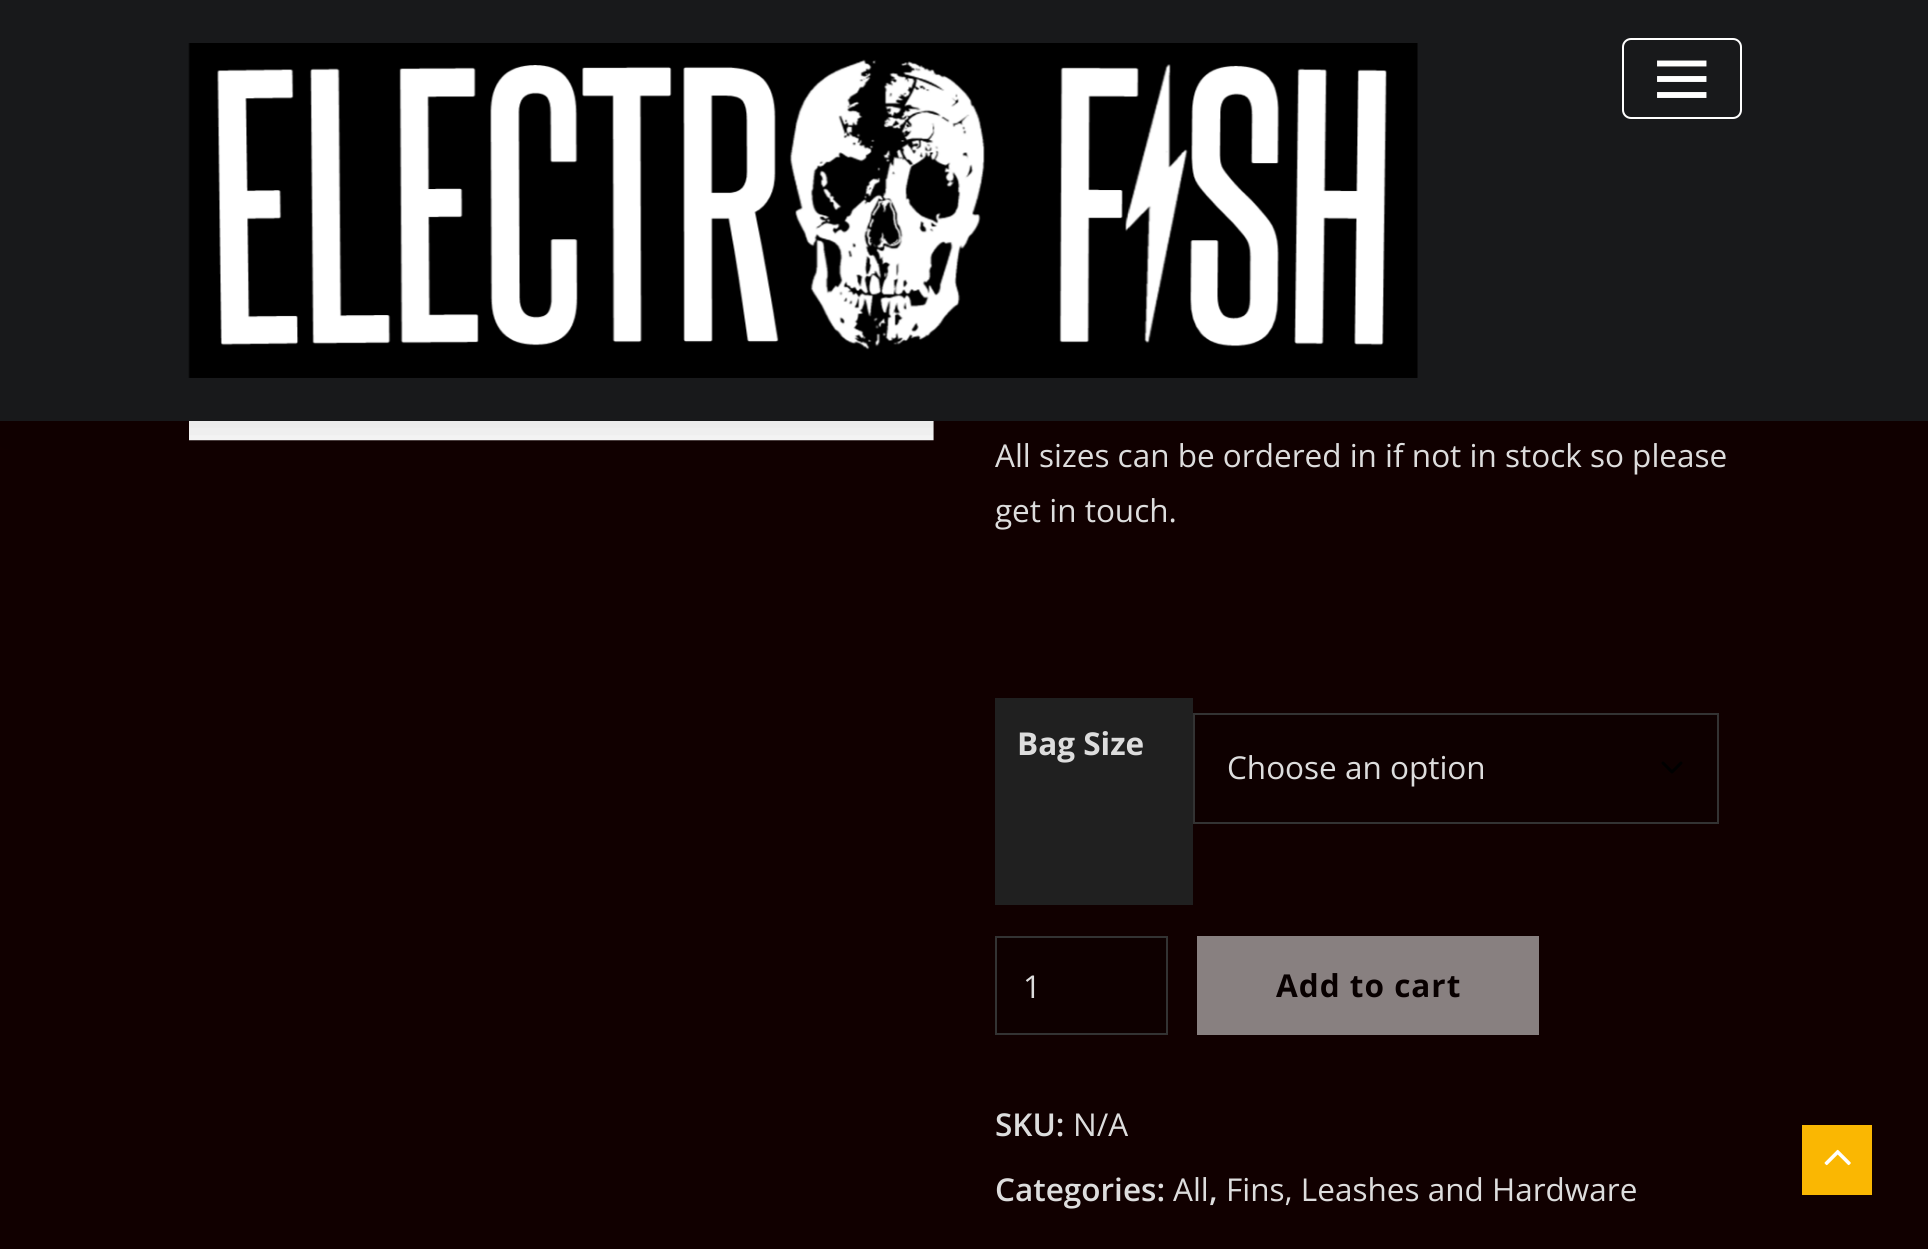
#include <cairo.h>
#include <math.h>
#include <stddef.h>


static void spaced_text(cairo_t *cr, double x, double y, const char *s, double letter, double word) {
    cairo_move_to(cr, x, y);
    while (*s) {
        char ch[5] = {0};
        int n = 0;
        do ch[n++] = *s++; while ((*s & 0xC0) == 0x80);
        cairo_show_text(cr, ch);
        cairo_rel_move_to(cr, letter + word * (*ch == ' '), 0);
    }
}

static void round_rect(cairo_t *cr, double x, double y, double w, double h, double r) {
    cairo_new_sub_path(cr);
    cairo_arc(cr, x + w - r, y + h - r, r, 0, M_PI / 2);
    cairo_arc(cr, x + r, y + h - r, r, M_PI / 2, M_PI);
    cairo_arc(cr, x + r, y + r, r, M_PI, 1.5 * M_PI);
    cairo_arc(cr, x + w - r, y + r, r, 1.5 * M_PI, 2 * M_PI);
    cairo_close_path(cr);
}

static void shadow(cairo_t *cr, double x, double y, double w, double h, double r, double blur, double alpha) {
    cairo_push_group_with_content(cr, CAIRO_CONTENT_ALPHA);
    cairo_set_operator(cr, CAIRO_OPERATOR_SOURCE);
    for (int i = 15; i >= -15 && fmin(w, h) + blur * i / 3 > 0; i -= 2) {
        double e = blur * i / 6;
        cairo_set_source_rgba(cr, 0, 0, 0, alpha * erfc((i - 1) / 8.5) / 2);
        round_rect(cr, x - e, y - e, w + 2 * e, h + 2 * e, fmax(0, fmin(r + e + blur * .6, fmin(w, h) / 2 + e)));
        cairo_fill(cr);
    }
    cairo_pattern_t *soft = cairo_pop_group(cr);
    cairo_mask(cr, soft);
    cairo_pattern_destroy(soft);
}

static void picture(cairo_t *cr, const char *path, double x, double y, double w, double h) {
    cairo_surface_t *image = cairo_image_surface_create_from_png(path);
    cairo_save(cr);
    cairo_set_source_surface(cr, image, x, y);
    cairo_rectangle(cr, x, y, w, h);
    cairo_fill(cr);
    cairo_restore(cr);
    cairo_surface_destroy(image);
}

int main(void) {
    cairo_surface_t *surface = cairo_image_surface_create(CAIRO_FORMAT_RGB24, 1928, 1249);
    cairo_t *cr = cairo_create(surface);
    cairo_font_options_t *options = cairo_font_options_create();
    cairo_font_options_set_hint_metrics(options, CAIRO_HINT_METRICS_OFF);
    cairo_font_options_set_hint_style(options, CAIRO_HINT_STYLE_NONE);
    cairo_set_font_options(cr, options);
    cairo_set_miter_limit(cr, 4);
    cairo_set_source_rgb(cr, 0.067, 0, 0);
    cairo_paint(cr);
    picture(cr, "img2.png", 189, 421, 745, 20);
    cairo_set_source_rgb(cr, 0, 0, 0);
    shadow(cr, 0, 18, 1928, 421, 0, 22.5, 0.1);
    cairo_set_source_rgb(cr, 0.094, 0.098, 0.106);
    cairo_rectangle(cr, 0, 0, 1928, 421);
    cairo_fill(cr);
    picture(cr, "img1.png", 188, 43, 1230, 335);
    round_rect(cr, 1623, 39, 118, 79, 8);
    cairo_set_source_rgb(cr, 1, 1, 1);
    cairo_stroke(cr);
    cairo_new_path(cr);
    cairo_move_to(cr, 1660, 63.5);
    cairo_line_to(cr, 1703.5, 63.5);
    cairo_move_to(cr, 1660, 79);
    cairo_line_to(cr, 1703.5, 79);
    cairo_move_to(cr, 1660, 95);
    cairo_line_to(cr, 1703.5, 95);
    cairo_set_line_width(cr, 5.9);
    cairo_set_line_cap(cr, CAIRO_LINE_CAP_SQUARE);
    cairo_stroke(cr);
    cairo_select_font_face(cr, "Open Sans", CAIRO_FONT_SLANT_NORMAL, CAIRO_FONT_WEIGHT_NORMAL);
    cairo_set_font_size(cr, 31.5);
    cairo_set_source_rgb(cr, 0.867, 0.867, 0.867);
    cairo_move_to(cr, 995, 467);
    cairo_show_text(cr, "All sizes can be ordered in if not in stock so please");
    cairo_move_to(cr, 995, 522);
    cairo_show_text(cr, "get in touch.");
    cairo_set_source_rgb(cr, 0.125, 0.125, 0.125);
    cairo_rectangle(cr, 995, 698, 198, 207);
    cairo_fill(cr);
    cairo_select_font_face(cr, "Open Sans", CAIRO_FONT_SLANT_NORMAL, CAIRO_FONT_WEIGHT_BOLD);
    cairo_set_source_rgb(cr, 0.867, 0.867, 0.867);
    cairo_move_to(cr, 1017, 755);
    cairo_show_text(cr, "Bag Size");
    cairo_set_source_rgb(cr, 0.055, 0, 0);
    cairo_rectangle(cr, 1195, 715, 522, 107);
    cairo_fill(cr);
    cairo_new_path(cr);
    cairo_move_to(cr, 1663, 763);
    cairo_line_to(cr, 1672, 772);
    cairo_line_to(cr, 1681, 763);
    cairo_set_source_rgb(cr, 0, 0, 0);
    cairo_set_line_width(cr, 3);
    cairo_set_line_cap(cr, CAIRO_LINE_CAP_ROUND);
    cairo_set_line_join(cr, CAIRO_LINE_JOIN_ROUND);
    cairo_stroke(cr);
    cairo_rectangle(cr, 1194, 714, 524, 109);
    cairo_set_source_rgb(cr, 0.2, 0.2, 0.2);
    cairo_set_line_width(cr, 2);
    cairo_set_line_cap(cr, CAIRO_LINE_CAP_BUTT);
    cairo_set_line_join(cr, CAIRO_LINE_JOIN_MITER);
    cairo_stroke(cr);
    cairo_select_font_face(cr, "Open Sans", CAIRO_FONT_SLANT_NORMAL, CAIRO_FONT_WEIGHT_NORMAL);
    cairo_set_source_rgb(cr, 0.867, 0.867, 0.867);
    cairo_move_to(cr, 1227, 779);
    cairo_show_text(cr, "Choose an option");
    cairo_set_source_rgb(cr, 0.055, 0, 0);
    cairo_rectangle(cr, 996, 937, 171, 97);
    cairo_fill_preserve(cr);
    cairo_set_source_rgb(cr, 0.2, 0.2, 0.2);
    cairo_stroke(cr);
    cairo_set_source_rgb(cr, 0.867, 0.867, 0.867);
    cairo_move_to(cr, 1023, 998);
    cairo_show_text(cr, "1");
    cairo_set_source_rgb(cr, 0.533, 0.502, 0.502);
    cairo_rectangle(cr, 1197, 936, 342, 99);
    cairo_fill(cr);
    cairo_select_font_face(cr, "Open Sans", CAIRO_FONT_SLANT_NORMAL, CAIRO_FONT_WEIGHT_BOLD);
    cairo_set_source_rgb(cr, 0.035, 0, 0);
    spaced_text(cr, 1276, 997, "Add to cart", 1, 0);
    cairo_select_font_face(cr, "Open Sans SemiBold", CAIRO_FONT_SLANT_NORMAL, CAIRO_FONT_WEIGHT_NORMAL);
    cairo_set_source_rgb(cr, 0.867, 0.867, 0.867);
    cairo_move_to(cr, 995, 1136);
    cairo_show_text(cr, "SKU:");
    cairo_select_font_face(cr, "Open Sans", CAIRO_FONT_SLANT_NORMAL, CAIRO_FONT_WEIGHT_NORMAL);
    cairo_move_to(cr, 1073, 1136);
    cairo_show_text(cr, "N/A");
    cairo_select_font_face(cr, "Open Sans SemiBold", CAIRO_FONT_SLANT_NORMAL, CAIRO_FONT_WEIGHT_NORMAL);
    cairo_move_to(cr, 995, 1201);
    cairo_show_text(cr, "Categories:");
    cairo_select_font_face(cr, "Open Sans", CAIRO_FONT_SLANT_NORMAL, CAIRO_FONT_WEIGHT_NORMAL);
    cairo_move_to(cr, 1173, 1201);
    cairo_show_text(cr, "All");
    cairo_select_font_face(cr, "Open Sans SemiBold", CAIRO_FONT_SLANT_NORMAL, CAIRO_FONT_WEIGHT_NORMAL);
    cairo_move_to(cr, 1209, 1201);
    cairo_show_text(cr, ",");
    cairo_select_font_face(cr, "Open Sans", CAIRO_FONT_SLANT_NORMAL, CAIRO_FONT_WEIGHT_NORMAL);
    cairo_move_to(cr, 1226, 1201);
    cairo_show_text(cr, "Fins, Leashes and Hardware");
    cairo_set_source_rgb(cr, 0.98, 0.718, 0.008);
    cairo_rectangle(cr, 1802, 1125, 70, 70);
    cairo_fill(cr);
    picture(cr, "img3.png", 1824, 1149, 27, 17);
    cairo_surface_write_to_png(surface, "page.png");
    cairo_font_options_destroy(options);
    cairo_destroy(cr);
    cairo_surface_destroy(surface);
    return 0;
}
